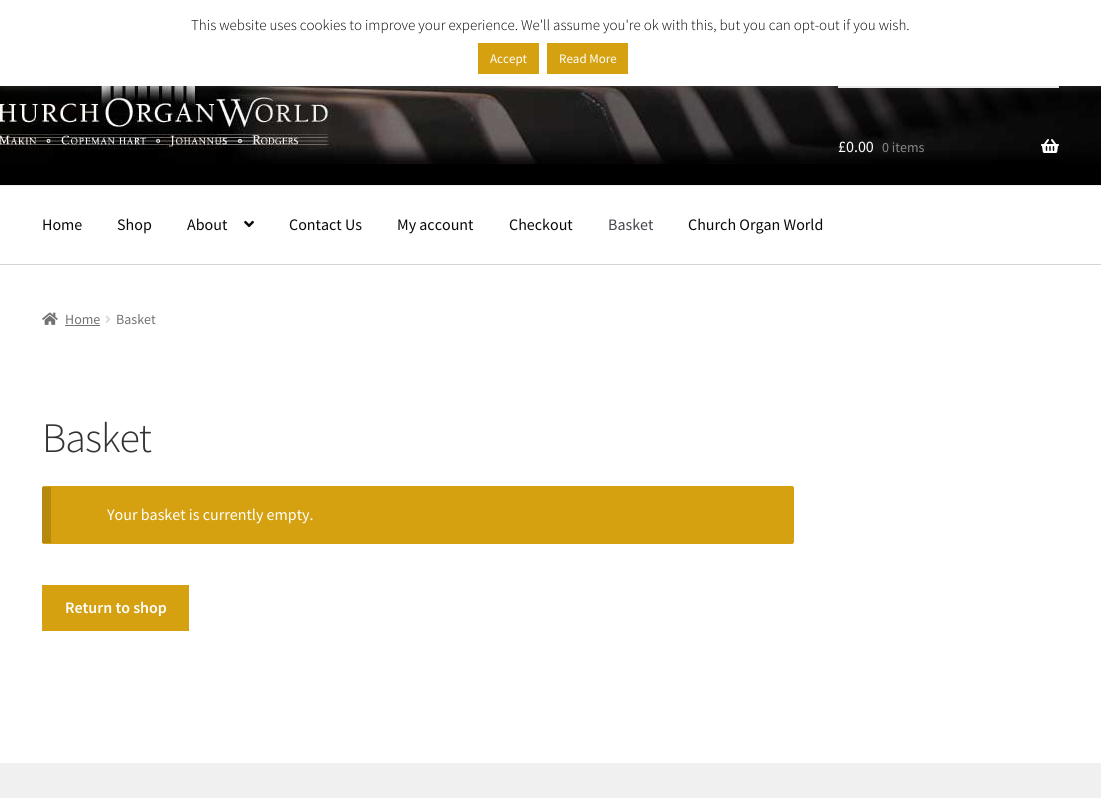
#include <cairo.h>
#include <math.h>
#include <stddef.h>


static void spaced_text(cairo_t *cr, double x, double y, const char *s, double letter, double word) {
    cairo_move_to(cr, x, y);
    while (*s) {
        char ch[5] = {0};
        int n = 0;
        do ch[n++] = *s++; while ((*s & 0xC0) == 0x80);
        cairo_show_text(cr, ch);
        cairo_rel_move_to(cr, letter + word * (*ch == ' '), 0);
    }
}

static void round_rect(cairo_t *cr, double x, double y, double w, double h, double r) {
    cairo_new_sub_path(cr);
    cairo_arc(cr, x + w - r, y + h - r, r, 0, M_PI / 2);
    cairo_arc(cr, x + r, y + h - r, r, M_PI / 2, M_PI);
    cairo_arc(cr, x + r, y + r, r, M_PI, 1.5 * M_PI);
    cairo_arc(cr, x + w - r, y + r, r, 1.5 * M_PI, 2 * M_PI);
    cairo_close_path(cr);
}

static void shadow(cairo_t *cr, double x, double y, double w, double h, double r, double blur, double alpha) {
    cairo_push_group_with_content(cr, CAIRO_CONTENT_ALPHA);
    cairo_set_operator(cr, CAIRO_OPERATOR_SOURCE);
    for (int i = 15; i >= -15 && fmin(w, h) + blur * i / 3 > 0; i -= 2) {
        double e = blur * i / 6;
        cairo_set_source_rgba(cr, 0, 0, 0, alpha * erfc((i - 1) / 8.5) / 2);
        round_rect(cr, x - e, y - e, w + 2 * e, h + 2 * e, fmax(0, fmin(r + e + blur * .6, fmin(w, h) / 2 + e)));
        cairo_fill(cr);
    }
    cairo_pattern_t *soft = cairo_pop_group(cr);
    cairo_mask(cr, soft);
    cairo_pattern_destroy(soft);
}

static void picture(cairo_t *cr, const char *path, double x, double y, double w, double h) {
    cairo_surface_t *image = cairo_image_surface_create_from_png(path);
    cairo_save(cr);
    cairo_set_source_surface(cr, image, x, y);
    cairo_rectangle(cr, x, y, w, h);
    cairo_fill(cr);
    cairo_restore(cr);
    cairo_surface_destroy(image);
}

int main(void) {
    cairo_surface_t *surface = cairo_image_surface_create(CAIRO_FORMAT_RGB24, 1101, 798);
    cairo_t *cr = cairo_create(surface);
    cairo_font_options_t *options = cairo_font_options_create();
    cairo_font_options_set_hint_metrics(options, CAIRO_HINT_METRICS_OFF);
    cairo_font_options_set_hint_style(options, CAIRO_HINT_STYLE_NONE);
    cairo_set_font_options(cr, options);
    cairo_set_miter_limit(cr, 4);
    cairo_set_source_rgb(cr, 1, 1, 1);
    cairo_paint(cr);
    picture(cr, "img1.png", 0, 86, 1101, 78);
    cairo_set_source_rgb(cr, 0.949, 0.949, 0.949);
    cairo_rectangle(cr, 838, 86, 221, 2);
    cairo_fill(cr);
    cairo_set_source_rgb(cr, 0.675, 0.671, 0.671);
    shadow(cr, 0, -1, 1101, 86, 0, 5, 0.3);
    cairo_set_source_rgb(cr, 1, 1, 1);
    cairo_rectangle(cr, 0, 0, 1101, 86);
    cairo_fill(cr);
    cairo_select_font_face(cr, "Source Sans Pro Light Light", CAIRO_FONT_SLANT_NORMAL, CAIRO_FONT_WEIGHT_NORMAL);
    cairo_set_font_size(cr, 15);
    cairo_set_source_rgb(cr, 0, 0, 0);
    cairo_move_to(cr, 191, 30);
    cairo_show_text(cr, "This website uses cookies to improve your experience. We'll assume you're ok with this, but you can opt-out if you wish.");
    cairo_set_source_rgb(cr, 0.835, 0.631, 0.067);
    cairo_rectangle(cr, 478, 43, 61, 31);
    cairo_fill(cr);
    cairo_select_font_face(cr, "Source Sans Pro", CAIRO_FONT_SLANT_NORMAL, CAIRO_FONT_WEIGHT_NORMAL);
    cairo_set_font_size(cr, 13);
    cairo_set_source_rgb(cr, 1, 1, 1);
    cairo_move_to(cr, 490, 63);
    cairo_show_text(cr, "Accept");
    cairo_set_source_rgb(cr, 0.835, 0.631, 0.067);
    cairo_rectangle(cr, 547, 43, 81, 31);
    cairo_fill(cr);
    cairo_set_source_rgb(cr, 1, 1, 1);
    cairo_move_to(cr, 559, 63);
    cairo_show_text(cr, "Read More");
    cairo_set_source_rgb(cr, 0, 0, 0);
    cairo_rectangle(cr, 0, 164, 1101, 21);
    cairo_fill(cr);
    cairo_set_source_rgb(cr, 0.941, 0.941, 0.941);
    cairo_rectangle(cr, 0, 185, 1101, 1);
    cairo_fill(cr);
    cairo_set_font_size(cr, 16);
    cairo_set_source_rgb(cr, 1, 1, 1);
    cairo_move_to(cr, 838, 152);
    cairo_show_text(cr, "£0.00");
    cairo_set_font_size(cr, 14);
    cairo_set_source_rgb(cr, 0.533, 0.533, 0.533);
    cairo_move_to(cr, 882, 152);
    cairo_show_text(cr, "0 items");
    picture(cr, "img2.png", 1041, 139, 18, 14);
    cairo_set_source_rgb(cr, 0.827, 0.827, 0.827);
    cairo_rectangle(cr, 0, 264, 1101, 1);
    cairo_fill(cr);
    cairo_set_font_size(cr, 16);
    cairo_set_source_rgb(cr, 0.039, 0.039, 0.039);
    cairo_move_to(cr, 42, 230);
    cairo_show_text(cr, "Home");
    cairo_move_to(cr, 117, 230);
    cairo_show_text(cr, "Shop");
    cairo_move_to(cr, 187, 230);
    cairo_show_text(cr, "About");
    picture(cr, "img3.png", 244, 220, 10, 8);
    cairo_move_to(cr, 289, 230);
    cairo_show_text(cr, "Contact Us");
    cairo_move_to(cr, 397, 230);
    cairo_show_text(cr, "My account");
    cairo_move_to(cr, 509, 230);
    cairo_show_text(cr, "Checkout");
    cairo_set_source_rgb(cr, 0.263, 0.271, 0.294);
    cairo_move_to(cr, 608, 230);
    cairo_show_text(cr, "Basket");
    cairo_set_source_rgb(cr, 0.039, 0.039, 0.039);
    cairo_move_to(cr, 688, 230);
    cairo_show_text(cr, "Church Organ World");
    picture(cr, "img4.png", 42, 312, 16, 13);
    cairo_set_font_size(cr, 14);
    cairo_set_source_rgb(cr, 0.447, 0.447, 0.447);
    cairo_move_to(cr, 65, 324);
    cairo_show_text(cr, "Home");
    cairo_rectangle(cr, 65, 325, 35, 1);
    cairo_fill(cr);
    picture(cr, "img5.png", 105, 315, 6, 8);
    cairo_move_to(cr, 116, 324);
    cairo_show_text(cr, "Basket");
    cairo_select_font_face(cr, "Source Sans Pro Light Light", CAIRO_FONT_SLANT_NORMAL, CAIRO_FONT_WEIGHT_NORMAL);
    cairo_set_font_size(cr, 42);
    cairo_set_source_rgb(cr, 0.2, 0.2, 0.2);
    spaced_text(cr, 42, 452, "Basket", -1, 0);
    cairo_set_source_rgb(cr, 0.835, 0.631, 0.067);
    round_rect(cr, 42, 486, 752, 58, 2);
    cairo_fill(cr);
    cairo_set_source_rgba(cr, 0, 0, 0, 0.15);
    cairo_rectangle(cr, 42, 487, 9, 56);
    cairo_fill(cr);
    cairo_select_font_face(cr, "Source Sans Pro", CAIRO_FONT_SLANT_NORMAL, CAIRO_FONT_WEIGHT_NORMAL);
    cairo_set_font_size(cr, 16);
    cairo_set_source_rgb(cr, 1, 1, 1);
    cairo_move_to(cr, 107, 520);
    cairo_show_text(cr, "Your basket is currently empty.");
    cairo_set_source_rgb(cr, 0.835, 0.631, 0.067);
    cairo_rectangle(cr, 42, 585, 147, 46);
    cairo_fill(cr);
    cairo_select_font_face(cr, "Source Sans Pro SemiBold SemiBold", CAIRO_FONT_SLANT_NORMAL, CAIRO_FONT_WEIGHT_NORMAL);
    cairo_set_source_rgb(cr, 1, 1, 1);
    cairo_move_to(cr, 65, 613);
    cairo_show_text(cr, "Return to shop");
    cairo_set_source_rgb(cr, 0.941, 0.941, 0.941);
    cairo_rectangle(cr, 0, 763, 1101, 35);
    cairo_fill(cr);
    cairo_surface_write_to_png(surface, "page.png");
    cairo_font_options_destroy(options);
    cairo_destroy(cr);
    cairo_surface_destroy(surface);
    return 0;
}
